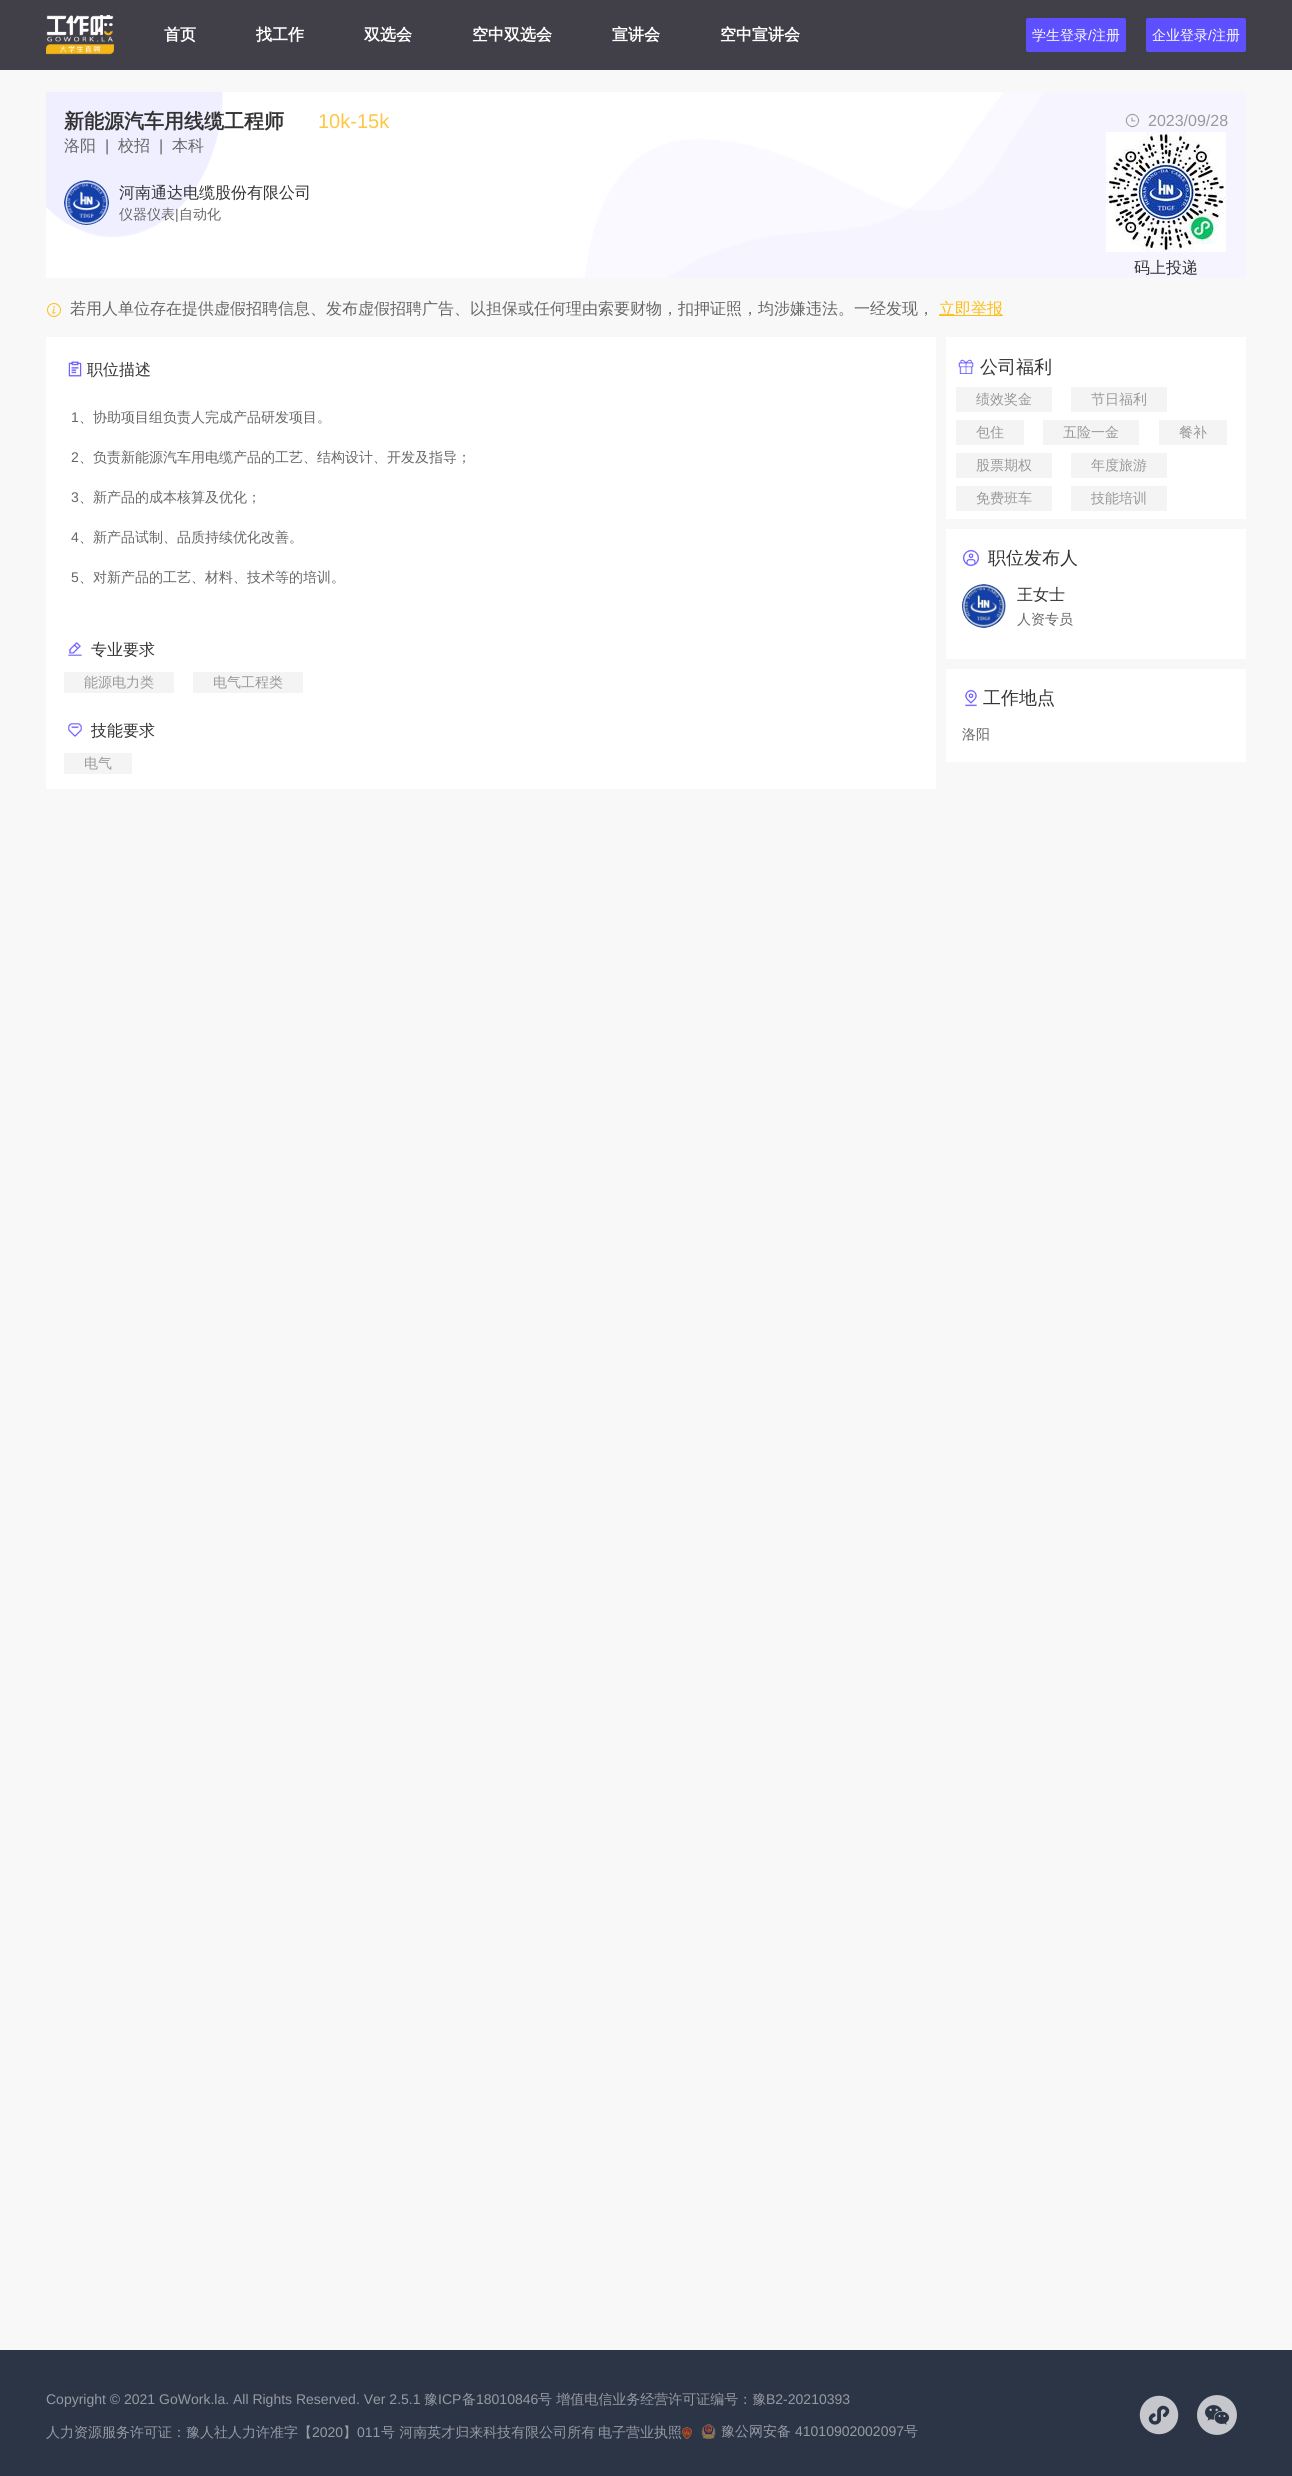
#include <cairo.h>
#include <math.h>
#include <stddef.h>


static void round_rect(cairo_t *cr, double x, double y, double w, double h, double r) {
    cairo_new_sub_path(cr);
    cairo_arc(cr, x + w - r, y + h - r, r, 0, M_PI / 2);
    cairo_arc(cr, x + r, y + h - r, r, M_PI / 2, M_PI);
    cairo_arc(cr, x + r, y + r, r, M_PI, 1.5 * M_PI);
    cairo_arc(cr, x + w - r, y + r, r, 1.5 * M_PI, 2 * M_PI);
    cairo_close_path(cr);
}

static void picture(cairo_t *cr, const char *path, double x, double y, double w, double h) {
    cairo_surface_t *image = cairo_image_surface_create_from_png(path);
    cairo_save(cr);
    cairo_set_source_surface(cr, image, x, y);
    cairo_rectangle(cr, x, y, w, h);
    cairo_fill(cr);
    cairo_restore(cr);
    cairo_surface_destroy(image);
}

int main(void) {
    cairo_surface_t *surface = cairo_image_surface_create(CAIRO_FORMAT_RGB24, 1292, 2476);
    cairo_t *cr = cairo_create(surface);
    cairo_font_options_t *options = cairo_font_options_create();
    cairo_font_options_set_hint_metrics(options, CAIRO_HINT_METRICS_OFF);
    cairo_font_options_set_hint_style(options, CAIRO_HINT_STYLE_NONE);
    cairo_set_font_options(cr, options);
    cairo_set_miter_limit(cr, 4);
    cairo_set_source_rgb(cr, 0.969, 0.969, 0.969);
    cairo_paint(cr);
    cairo_set_source_rgb(cr, 0.255, 0.251, 0.286);
    cairo_rectangle(cr, 0, 0, 1292, 70);
    cairo_fill(cr);
    picture(cr, "img1.png", 46, 15, 68, 40);
    cairo_select_font_face(cr, "WenQuanYi Zen Hei", CAIRO_FONT_SLANT_NORMAL, CAIRO_FONT_WEIGHT_BOLD);
    cairo_set_font_size(cr, 16);
    cairo_set_source_rgb(cr, 1, 1, 1);
    cairo_move_to(cr, 164, 40);
    cairo_show_text(cr, "首页");
    cairo_move_to(cr, 256, 40);
    cairo_show_text(cr, "找工作");
    cairo_move_to(cr, 364, 40);
    cairo_show_text(cr, "双选会");
    cairo_move_to(cr, 472, 40);
    cairo_show_text(cr, "空中双选会");
    cairo_move_to(cr, 612, 40);
    cairo_show_text(cr, "宣讲会");
    cairo_move_to(cr, 720, 40);
    cairo_show_text(cr, "空中宣讲会");
    cairo_set_source_rgb(cr, 0.369, 0.31, 1);
    round_rect(cr, 1026, 18, 100, 34, 2);
    cairo_fill(cr);
    cairo_select_font_face(cr, "WenQuanYi Zen Hei Medium", CAIRO_FONT_SLANT_NORMAL, CAIRO_FONT_WEIGHT_NORMAL);
    cairo_set_font_size(cr, 14);
    cairo_set_source_rgb(cr, 1, 1, 1);
    cairo_move_to(cr, 1032, 40);
    cairo_show_text(cr, "学生登录");
    cairo_select_font_face(cr, "Liberation Sans", CAIRO_FONT_SLANT_NORMAL, CAIRO_FONT_WEIGHT_NORMAL);
    cairo_move_to(cr, 1088, 40);
    cairo_show_text(cr, "/");
    cairo_select_font_face(cr, "WenQuanYi Zen Hei Medium", CAIRO_FONT_SLANT_NORMAL, CAIRO_FONT_WEIGHT_NORMAL);
    cairo_move_to(cr, 1092, 40);
    cairo_show_text(cr, "注册");
    cairo_set_source_rgb(cr, 0.369, 0.31, 1);
    round_rect(cr, 1146, 18, 100, 34, 2);
    cairo_fill(cr);
    cairo_set_source_rgb(cr, 1, 1, 1);
    cairo_move_to(cr, 1152, 40);
    cairo_show_text(cr, "企业登录");
    cairo_select_font_face(cr, "Liberation Sans", CAIRO_FONT_SLANT_NORMAL, CAIRO_FONT_WEIGHT_NORMAL);
    cairo_move_to(cr, 1208, 40);
    cairo_show_text(cr, "/");
    cairo_select_font_face(cr, "WenQuanYi Zen Hei Medium", CAIRO_FONT_SLANT_NORMAL, CAIRO_FONT_WEIGHT_NORMAL);
    cairo_move_to(cr, 1212, 40);
    cairo_show_text(cr, "注册");
    cairo_rectangle(cr, 46, 92, 1200, 186);
    cairo_fill(cr);
    picture(cr, "img2.png", 46, 92, 1200, 186);
    cairo_select_font_face(cr, "WenQuanYi Zen Hei", CAIRO_FONT_SLANT_NORMAL, CAIRO_FONT_WEIGHT_BOLD);
    cairo_set_font_size(cr, 20);
    cairo_set_source_rgb(cr, 0.2, 0.2, 0.2);
    cairo_move_to(cr, 64, 128);
    cairo_show_text(cr, "新能源汽车用线缆工程师");
    cairo_select_font_face(cr, "Liberation Sans", CAIRO_FONT_SLANT_NORMAL, CAIRO_FONT_WEIGHT_NORMAL);
    cairo_set_source_rgb(cr, 0.996, 0.776, 0.263);
    cairo_move_to(cr, 318, 128);
    cairo_show_text(cr, "10k-15k");
    picture(cr, "img3.png", 1125, 113, 15, 15);
    cairo_set_font_size(cr, 16);
    cairo_set_source_rgb(cr, 0.6, 0.6, 0.6);
    cairo_move_to(cr, 1148, 126);
    cairo_show_text(cr, "2023/09/28");
    cairo_select_font_face(cr, "WenQuanYi Zen Hei Medium", CAIRO_FONT_SLANT_NORMAL, CAIRO_FONT_WEIGHT_NORMAL);
    cairo_set_source_rgb(cr, 0.4, 0.4, 0.4);
    cairo_move_to(cr, 64, 151);
    cairo_show_text(cr, "洛阳");
    cairo_select_font_face(cr, "Liberation Sans", CAIRO_FONT_SLANT_NORMAL, CAIRO_FONT_WEIGHT_NORMAL);
    cairo_move_to(cr, 105, 151);
    cairo_show_text(cr, "|");
    cairo_select_font_face(cr, "WenQuanYi Zen Hei Medium", CAIRO_FONT_SLANT_NORMAL, CAIRO_FONT_WEIGHT_NORMAL);
    cairo_move_to(cr, 118, 151);
    cairo_show_text(cr, "校招");
    cairo_select_font_face(cr, "Liberation Sans", CAIRO_FONT_SLANT_NORMAL, CAIRO_FONT_WEIGHT_NORMAL);
    cairo_move_to(cr, 159, 151);
    cairo_show_text(cr, "|");
    cairo_select_font_face(cr, "WenQuanYi Zen Hei Medium", CAIRO_FONT_SLANT_NORMAL, CAIRO_FONT_WEIGHT_NORMAL);
    cairo_move_to(cr, 172, 151);
    cairo_show_text(cr, "本科");
    picture(cr, "img4.png", 64, 180, 45, 45);
    cairo_set_source_rgb(cr, 0.2, 0.2, 0.2);
    cairo_move_to(cr, 119, 198);
    cairo_show_text(cr, "河南通达电缆股份有限公司");
    cairo_set_font_size(cr, 14);
    cairo_set_source_rgb(cr, 0.4, 0.4, 0.4);
    cairo_move_to(cr, 119, 219);
    cairo_show_text(cr, "仪器仪表");
    cairo_select_font_face(cr, "Liberation Sans", CAIRO_FONT_SLANT_NORMAL, CAIRO_FONT_WEIGHT_NORMAL);
    cairo_move_to(cr, 175, 219);
    cairo_show_text(cr, "|");
    cairo_select_font_face(cr, "WenQuanYi Zen Hei Medium", CAIRO_FONT_SLANT_NORMAL, CAIRO_FONT_WEIGHT_NORMAL);
    cairo_move_to(cr, 179, 219);
    cairo_show_text(cr, "自动化");
    picture(cr, "img5.png", 1106, 132, 120, 120);
    cairo_set_font_size(cr, 16);
    cairo_set_source_rgb(cr, 0.2, 0.2, 0.2);
    cairo_move_to(cr, 1134, 273);
    cairo_show_text(cr, "码上投递");
    picture(cr, "img6.png", 47, 303, 14, 14);
    cairo_set_source_rgb(cr, 0.4, 0.4, 0.4);
    cairo_move_to(cr, 70, 314);
    cairo_show_text(cr, "若用人单位存在提供虚假招聘信息、发布虚假招聘广告、以担保或任何理由索要财物，扣押证照，均涉嫌违法。一经发现，");
    cairo_set_source_rgb(cr, 1, 0.741, 0.09);
    cairo_rectangle(cr, 939, 315, 64, 1);
    cairo_fill(cr);
    cairo_move_to(cr, 939, 314);
    cairo_show_text(cr, "立即举报");
    cairo_set_source_rgb(cr, 1, 1, 1);
    cairo_rectangle(cr, 46, 337, 890, 452);
    cairo_fill(cr);
    picture(cr, "img7.png", 68, 361, 14, 16);
    cairo_set_source_rgb(cr, 0.2, 0.2, 0.2);
    cairo_move_to(cr, 87, 375);
    cairo_show_text(cr, "职位描述");
    cairo_select_font_face(cr, "Liberation Sans", CAIRO_FONT_SLANT_NORMAL, CAIRO_FONT_WEIGHT_NORMAL);
    cairo_set_font_size(cr, 14);
    cairo_set_source_rgb(cr, 0.4, 0.4, 0.4);
    cairo_move_to(cr, 71, 422);
    cairo_show_text(cr, "1");
    cairo_select_font_face(cr, "WenQuanYi Zen Hei Medium", CAIRO_FONT_SLANT_NORMAL, CAIRO_FONT_WEIGHT_NORMAL);
    cairo_move_to(cr, 79, 422);
    cairo_show_text(cr, "、协助项目组负责人完成产品研发项目。");
    cairo_select_font_face(cr, "Liberation Sans", CAIRO_FONT_SLANT_NORMAL, CAIRO_FONT_WEIGHT_NORMAL);
    cairo_move_to(cr, 71, 462);
    cairo_show_text(cr, "2");
    cairo_select_font_face(cr, "WenQuanYi Zen Hei Medium", CAIRO_FONT_SLANT_NORMAL, CAIRO_FONT_WEIGHT_NORMAL);
    cairo_move_to(cr, 79, 462);
    cairo_show_text(cr, "、负责新能源汽车用电缆产品的工艺、结构设计、开发及指导；");
    cairo_select_font_face(cr, "Liberation Sans", CAIRO_FONT_SLANT_NORMAL, CAIRO_FONT_WEIGHT_NORMAL);
    cairo_move_to(cr, 71, 502);
    cairo_show_text(cr, "3");
    cairo_select_font_face(cr, "WenQuanYi Zen Hei Medium", CAIRO_FONT_SLANT_NORMAL, CAIRO_FONT_WEIGHT_NORMAL);
    cairo_move_to(cr, 79, 502);
    cairo_show_text(cr, "、新产品的成本核算及优化；");
    cairo_select_font_face(cr, "Liberation Sans", CAIRO_FONT_SLANT_NORMAL, CAIRO_FONT_WEIGHT_NORMAL);
    cairo_move_to(cr, 71, 542);
    cairo_show_text(cr, "4");
    cairo_select_font_face(cr, "WenQuanYi Zen Hei Medium", CAIRO_FONT_SLANT_NORMAL, CAIRO_FONT_WEIGHT_NORMAL);
    cairo_move_to(cr, 79, 542);
    cairo_show_text(cr, "、新产品试制、品质持续优化改善。");
    cairo_select_font_face(cr, "Liberation Sans", CAIRO_FONT_SLANT_NORMAL, CAIRO_FONT_WEIGHT_NORMAL);
    cairo_move_to(cr, 71, 582);
    cairo_show_text(cr, "5");
    cairo_select_font_face(cr, "WenQuanYi Zen Hei Medium", CAIRO_FONT_SLANT_NORMAL, CAIRO_FONT_WEIGHT_NORMAL);
    cairo_move_to(cr, 79, 582);
    cairo_show_text(cr, "、对新产品的工艺、材料、技术等的培训。");
    picture(cr, "img8.png", 68, 642, 14, 14);
    cairo_set_font_size(cr, 16);
    cairo_set_source_rgb(cr, 0.2, 0.2, 0.2);
    cairo_move_to(cr, 91, 655);
    cairo_show_text(cr, "专业要求");
    cairo_set_source_rgb(cr, 0.957, 0.957, 0.957);
    cairo_rectangle(cr, 64, 672, 110, 21);
    cairo_fill(cr);
    cairo_set_font_size(cr, 14);
    cairo_set_source_rgb(cr, 0.6, 0.6, 0.6);
    cairo_move_to(cr, 84, 687);
    cairo_show_text(cr, "能源电力类");
    cairo_set_source_rgb(cr, 0.957, 0.957, 0.957);
    cairo_rectangle(cr, 193, 672, 110, 21);
    cairo_fill(cr);
    cairo_set_source_rgb(cr, 0.6, 0.6, 0.6);
    cairo_move_to(cr, 213, 687);
    cairo_show_text(cr, "电气工程类");
    picture(cr, "img9.png", 68, 723, 14, 14);
    cairo_set_font_size(cr, 16);
    cairo_set_source_rgb(cr, 0.2, 0.2, 0.2);
    cairo_move_to(cr, 91, 736);
    cairo_show_text(cr, "技能要求");
    cairo_set_source_rgb(cr, 0.957, 0.957, 0.957);
    cairo_rectangle(cr, 64, 753, 68, 21);
    cairo_fill(cr);
    cairo_set_font_size(cr, 14);
    cairo_set_source_rgb(cr, 0.6, 0.6, 0.6);
    cairo_move_to(cr, 84, 768);
    cairo_show_text(cr, "电气");
    cairo_set_source_rgb(cr, 1, 1, 1);
    cairo_rectangle(cr, 946, 337, 300, 182);
    cairo_fill(cr);
    picture(cr, "img10.png", 958, 359, 16, 15);
    cairo_set_font_size(cr, 18);
    cairo_set_source_rgb(cr, 0.2, 0.2, 0.2);
    cairo_move_to(cr, 980, 373);
    cairo_show_text(cr, "公司福利");
    cairo_set_source_rgb(cr, 0.957, 0.957, 0.957);
    cairo_rectangle(cr, 956, 387, 96, 25);
    cairo_fill(cr);
    cairo_set_font_size(cr, 14);
    cairo_set_source_rgb(cr, 0.6, 0.6, 0.6);
    cairo_move_to(cr, 976, 404);
    cairo_show_text(cr, "绩效奖金");
    cairo_set_source_rgb(cr, 0.957, 0.957, 0.957);
    cairo_rectangle(cr, 1071, 387, 96, 25);
    cairo_fill(cr);
    cairo_set_source_rgb(cr, 0.6, 0.6, 0.6);
    cairo_move_to(cr, 1091, 404);
    cairo_show_text(cr, "节日福利");
    cairo_set_source_rgb(cr, 0.957, 0.957, 0.957);
    cairo_rectangle(cr, 956, 420, 68, 25);
    cairo_fill(cr);
    cairo_set_source_rgb(cr, 0.6, 0.6, 0.6);
    cairo_move_to(cr, 976, 437);
    cairo_show_text(cr, "包住");
    cairo_set_source_rgb(cr, 0.957, 0.957, 0.957);
    cairo_rectangle(cr, 1043, 420, 96, 25);
    cairo_fill(cr);
    cairo_set_source_rgb(cr, 0.6, 0.6, 0.6);
    cairo_move_to(cr, 1063, 437);
    cairo_show_text(cr, "五险一金");
    cairo_set_source_rgb(cr, 0.957, 0.957, 0.957);
    cairo_rectangle(cr, 1159, 420, 68, 25);
    cairo_fill(cr);
    cairo_set_source_rgb(cr, 0.6, 0.6, 0.6);
    cairo_move_to(cr, 1179, 437);
    cairo_show_text(cr, "餐补");
    cairo_set_source_rgb(cr, 0.957, 0.957, 0.957);
    cairo_rectangle(cr, 956, 453, 96, 25);
    cairo_fill(cr);
    cairo_set_source_rgb(cr, 0.6, 0.6, 0.6);
    cairo_move_to(cr, 976, 470);
    cairo_show_text(cr, "股票期权");
    cairo_set_source_rgb(cr, 0.957, 0.957, 0.957);
    cairo_rectangle(cr, 1071, 453, 96, 25);
    cairo_fill(cr);
    cairo_set_source_rgb(cr, 0.6, 0.6, 0.6);
    cairo_move_to(cr, 1091, 470);
    cairo_show_text(cr, "年度旅游");
    cairo_set_source_rgb(cr, 0.957, 0.957, 0.957);
    cairo_rectangle(cr, 956, 486, 96, 25);
    cairo_fill(cr);
    cairo_set_source_rgb(cr, 0.6, 0.6, 0.6);
    cairo_move_to(cr, 976, 503);
    cairo_show_text(cr, "免费班车");
    cairo_set_source_rgb(cr, 0.957, 0.957, 0.957);
    cairo_rectangle(cr, 1071, 486, 96, 25);
    cairo_fill(cr);
    cairo_set_source_rgb(cr, 0.6, 0.6, 0.6);
    cairo_move_to(cr, 1091, 503);
    cairo_show_text(cr, "技能培训");
    cairo_set_source_rgb(cr, 1, 1, 1);
    cairo_rectangle(cr, 946, 529, 300, 130);
    cairo_fill(cr);
    picture(cr, "img11.png", 962, 549, 18, 18);
    cairo_set_font_size(cr, 18);
    cairo_set_source_rgb(cr, 0.2, 0.2, 0.2);
    cairo_move_to(cr, 988, 564);
    cairo_show_text(cr, "职位发布人");
    picture(cr, "img12.png", 962, 584, 44, 44);
    cairo_set_font_size(cr, 16);
    cairo_move_to(cr, 1017, 600);
    cairo_show_text(cr, "王女士");
    cairo_set_font_size(cr, 14);
    cairo_set_source_rgb(cr, 0.4, 0.4, 0.4);
    cairo_move_to(cr, 1017, 624);
    cairo_show_text(cr, "人资专员");
    cairo_set_source_rgb(cr, 1, 1, 1);
    cairo_rectangle(cr, 946, 669, 300, 93);
    cairo_fill(cr);
    picture(cr, "img13.png", 965, 689, 12, 18);
    cairo_set_font_size(cr, 18);
    cairo_set_source_rgb(cr, 0.2, 0.2, 0.2);
    cairo_move_to(cr, 983, 704);
    cairo_show_text(cr, "工作地点");
    cairo_set_font_size(cr, 14);
    cairo_set_source_rgb(cr, 0.4, 0.4, 0.4);
    cairo_move_to(cr, 962, 739);
    cairo_show_text(cr, "洛阳");
    cairo_set_source_rgb(cr, 0.173, 0.208, 0.275);
    cairo_rectangle(cr, 0, 2350, 1292, 126);
    cairo_fill(cr);
    cairo_select_font_face(cr, "Liberation Sans", CAIRO_FONT_SLANT_NORMAL, CAIRO_FONT_WEIGHT_NORMAL);
    cairo_set_source_rgb(cr, 0.588, 0.604, 0.639);
    cairo_move_to(cr, 46, 2404);
    cairo_show_text(cr, "Copyright © 2021 GoWork.la. All Rights Reserved. Ver 2.5.1");
    cairo_select_font_face(cr, "WenQuanYi Zen Hei Medium", CAIRO_FONT_SLANT_NORMAL, CAIRO_FONT_WEIGHT_NORMAL);
    cairo_move_to(cr, 424, 2404);
    cairo_show_text(cr, "豫");
    cairo_select_font_face(cr, "Liberation Sans", CAIRO_FONT_SLANT_NORMAL, CAIRO_FONT_WEIGHT_NORMAL);
    cairo_move_to(cr, 438, 2404);
    cairo_show_text(cr, "ICP");
    cairo_select_font_face(cr, "WenQuanYi Zen Hei Medium", CAIRO_FONT_SLANT_NORMAL, CAIRO_FONT_WEIGHT_NORMAL);
    cairo_move_to(cr, 462, 2404);
    cairo_show_text(cr, "备");
    cairo_select_font_face(cr, "Liberation Sans", CAIRO_FONT_SLANT_NORMAL, CAIRO_FONT_WEIGHT_NORMAL);
    cairo_move_to(cr, 476, 2404);
    cairo_show_text(cr, "18010846");
    cairo_select_font_face(cr, "WenQuanYi Zen Hei Medium", CAIRO_FONT_SLANT_NORMAL, CAIRO_FONT_WEIGHT_NORMAL);
    cairo_move_to(cr, 538, 2404);
    cairo_show_text(cr, "号 增值电信业务经营许可证编号：豫");
    cairo_select_font_face(cr, "Liberation Sans", CAIRO_FONT_SLANT_NORMAL, CAIRO_FONT_WEIGHT_NORMAL);
    cairo_move_to(cr, 766, 2404);
    cairo_show_text(cr, "B2-20210393");
    cairo_select_font_face(cr, "WenQuanYi Zen Hei Medium", CAIRO_FONT_SLANT_NORMAL, CAIRO_FONT_WEIGHT_NORMAL);
    cairo_move_to(cr, 46, 2437);
    cairo_show_text(cr, "人力资源服务许可证：豫人社人力许准字【");
    cairo_select_font_face(cr, "Liberation Sans", CAIRO_FONT_SLANT_NORMAL, CAIRO_FONT_WEIGHT_NORMAL);
    cairo_move_to(cr, 312, 2437);
    cairo_show_text(cr, "2020");
    cairo_select_font_face(cr, "WenQuanYi Zen Hei Medium", CAIRO_FONT_SLANT_NORMAL, CAIRO_FONT_WEIGHT_NORMAL);
    cairo_move_to(cr, 343, 2437);
    cairo_show_text(cr, "】");
    cairo_select_font_face(cr, "Liberation Sans", CAIRO_FONT_SLANT_NORMAL, CAIRO_FONT_WEIGHT_NORMAL);
    cairo_move_to(cr, 357, 2437);
    cairo_show_text(cr, "011");
    cairo_select_font_face(cr, "WenQuanYi Zen Hei Medium", CAIRO_FONT_SLANT_NORMAL, CAIRO_FONT_WEIGHT_NORMAL);
    cairo_move_to(cr, 381, 2437);
    cairo_show_text(cr, "号 河南英才归来科技有限公司所有");
    cairo_move_to(cr, 598, 2437);
    cairo_show_text(cr, "电子营业执照");
    picture(cr, "img14.png", 682, 2427, 10, 12);
    picture(cr, "img15.png", 701, 2424, 15, 15);
    cairo_move_to(cr, 721, 2436);
    cairo_show_text(cr, "豫公网安备");
    cairo_select_font_face(cr, "Liberation Sans", CAIRO_FONT_SLANT_NORMAL, CAIRO_FONT_WEIGHT_NORMAL);
    cairo_move_to(cr, 795, 2436);
    cairo_show_text(cr, "41010902002097");
    cairo_select_font_face(cr, "WenQuanYi Zen Hei Medium", CAIRO_FONT_SLANT_NORMAL, CAIRO_FONT_WEIGHT_NORMAL);
    cairo_move_to(cr, 904, 2436);
    cairo_show_text(cr, "号");
    picture(cr, "img16.png", 1139, 2395, 40, 40);
    picture(cr, "img17.png", 1197, 2395, 40, 40);
    cairo_surface_write_to_png(surface, "page.png");
    cairo_font_options_destroy(options);
    cairo_destroy(cr);
    cairo_surface_destroy(surface);
    return 0;
}
